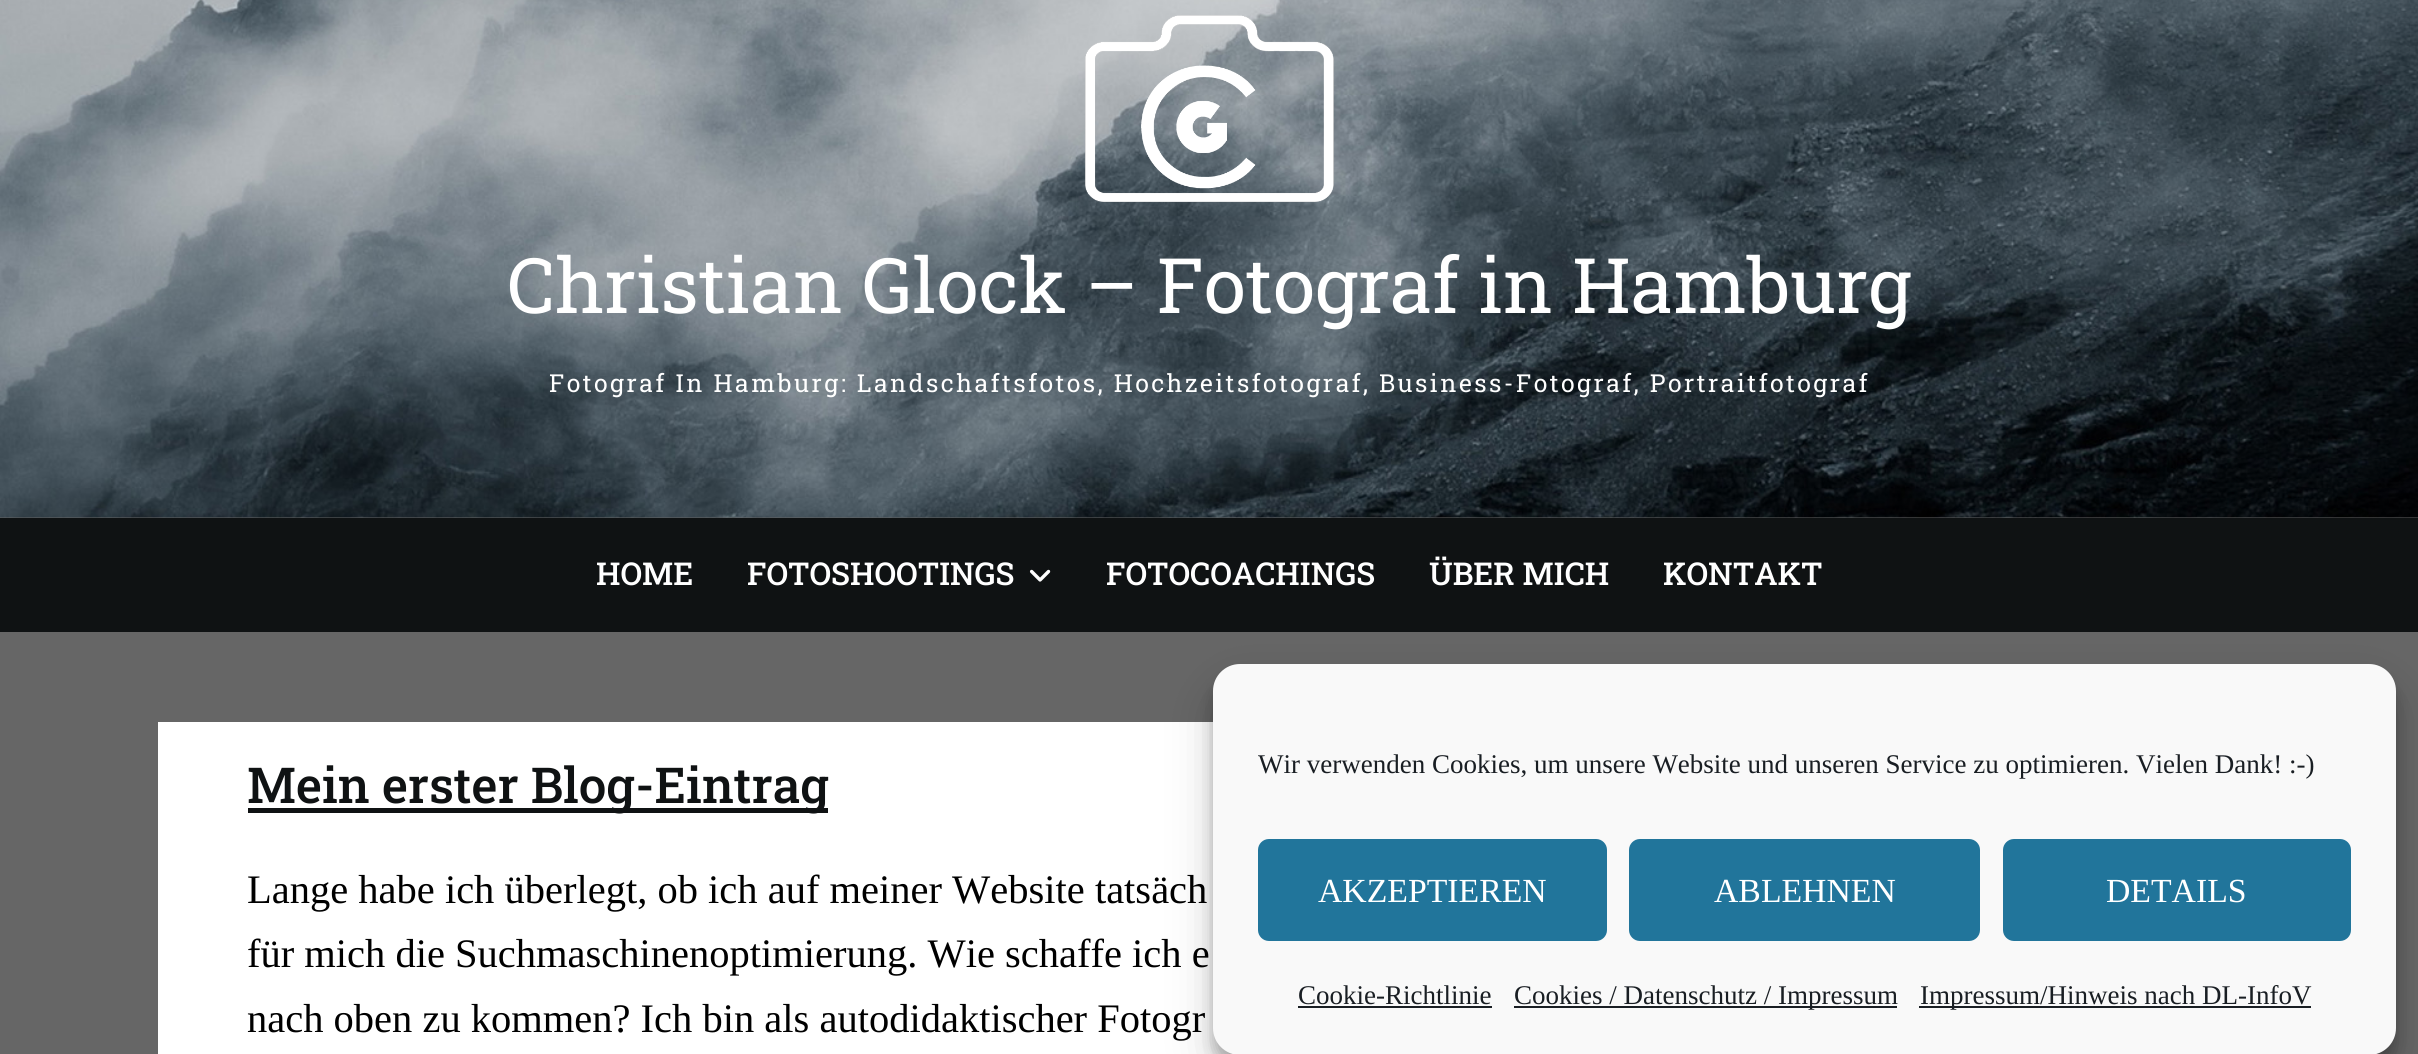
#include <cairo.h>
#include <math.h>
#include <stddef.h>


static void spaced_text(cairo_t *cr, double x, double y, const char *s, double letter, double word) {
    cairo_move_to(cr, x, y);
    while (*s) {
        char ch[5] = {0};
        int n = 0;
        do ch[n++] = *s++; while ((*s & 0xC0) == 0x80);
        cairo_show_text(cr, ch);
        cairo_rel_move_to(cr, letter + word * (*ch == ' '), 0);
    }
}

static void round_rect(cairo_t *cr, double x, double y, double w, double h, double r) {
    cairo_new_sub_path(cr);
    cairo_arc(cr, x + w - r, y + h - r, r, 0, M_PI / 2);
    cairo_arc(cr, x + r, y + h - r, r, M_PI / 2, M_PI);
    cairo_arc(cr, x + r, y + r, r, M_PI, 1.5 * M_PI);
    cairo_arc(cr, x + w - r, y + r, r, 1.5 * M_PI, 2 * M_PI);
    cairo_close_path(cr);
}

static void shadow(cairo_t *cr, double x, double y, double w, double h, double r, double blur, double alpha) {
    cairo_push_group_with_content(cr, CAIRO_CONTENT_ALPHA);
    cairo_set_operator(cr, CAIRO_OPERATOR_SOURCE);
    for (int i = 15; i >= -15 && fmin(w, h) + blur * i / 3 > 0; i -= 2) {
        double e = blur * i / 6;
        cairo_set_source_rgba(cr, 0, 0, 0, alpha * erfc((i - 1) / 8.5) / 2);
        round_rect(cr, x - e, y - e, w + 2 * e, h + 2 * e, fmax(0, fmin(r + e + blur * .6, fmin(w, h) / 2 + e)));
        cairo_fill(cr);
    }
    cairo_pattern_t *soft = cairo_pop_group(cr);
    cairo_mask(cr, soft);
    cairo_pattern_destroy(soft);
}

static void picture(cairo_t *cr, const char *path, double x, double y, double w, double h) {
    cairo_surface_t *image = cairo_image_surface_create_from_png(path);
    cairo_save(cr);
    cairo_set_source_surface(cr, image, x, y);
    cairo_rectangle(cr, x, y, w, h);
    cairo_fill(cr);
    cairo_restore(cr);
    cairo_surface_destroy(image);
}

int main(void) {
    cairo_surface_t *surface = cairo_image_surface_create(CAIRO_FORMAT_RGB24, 2418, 1054);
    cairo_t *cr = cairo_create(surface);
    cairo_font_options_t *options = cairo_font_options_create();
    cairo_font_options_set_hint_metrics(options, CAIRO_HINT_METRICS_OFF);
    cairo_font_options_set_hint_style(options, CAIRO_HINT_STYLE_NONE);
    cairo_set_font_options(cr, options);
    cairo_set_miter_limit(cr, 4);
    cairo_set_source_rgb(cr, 0.4, 0.4, 0.4);
    cairo_paint(cr);
    picture(cr, "img1.png", 0, 0, 2418, 518);
    picture(cr, "img2.png", 1085, 15, 249, 187);
    cairo_select_font_face(cr, "Roboto Slab", CAIRO_FONT_SLANT_NORMAL, CAIRO_FONT_WEIGHT_NORMAL);
    cairo_set_font_size(cr, 76.5);
    cairo_set_source_rgb(cr, 1, 1, 1);
    cairo_move_to(cr, 507, 313);
    cairo_show_text(cr, "Christian Glock – Fotograf in Hamburg");
    cairo_set_font_size(cr, 24.75);
    spaced_text(cr, 549, 392, "Fotograf In Hamburg: Landschaftsfotos, Hochzeitsfotograf, Business-Fotograf, Portraitfotograf", 2.48, 0);
    cairo_set_source_rgb(cr, 0.059, 0.071, 0.078);
    cairo_rectangle(cr, 0, 518, 2418, 114);
    cairo_fill(cr);
    cairo_select_font_face(cr, "Roboto Slab Medium", CAIRO_FONT_SLANT_NORMAL, CAIRO_FONT_WEIGHT_NORMAL);
    cairo_set_font_size(cr, 31.5);
    cairo_set_source_rgb(cr, 1, 1, 1);
    cairo_move_to(cr, 596, 585);
    cairo_show_text(cr, "HOME");
    cairo_move_to(cr, 747, 585);
    cairo_show_text(cr, "FOTOSHOOTINGS");
    picture(cr, "img3.png", 1029, 569, 22, 13);
    cairo_move_to(cr, 1106, 585);
    cairo_show_text(cr, "FOTOCOACHINGS");
    cairo_move_to(cr, 1429, 585);
    cairo_show_text(cr, "ÜBER MICH");
    cairo_move_to(cr, 1663, 585);
    cairo_show_text(cr, "KONTAKT");
    cairo_rectangle(cr, 158, 722, 1075, 332);
    cairo_fill(cr);
    cairo_set_source_rgb(cr, 0.059, 0.071, 0.078);
    cairo_rectangle(cr, 248, 808, 580, 5);
    cairo_fill(cr);
    cairo_set_font_size(cr, 49.5);
    cairo_move_to(cr, 247, 803);
    cairo_show_text(cr, "Mein erster Blog-Eintrag");
    cairo_select_font_face(cr, "Liberation Serif", CAIRO_FONT_SLANT_NORMAL, CAIRO_FONT_WEIGHT_NORMAL);
    cairo_set_font_size(cr, 40.5);
    cairo_set_source_rgb(cr, 0, 0, 0);
    cairo_move_to(cr, 247, 903);
    cairo_show_text(cr, "Lange habe ich überlegt, ob ich auf meiner Website tatsäch");
    cairo_move_to(cr, 247, 967);
    cairo_show_text(cr, "für mich die Suchmaschinenoptimierung. Wie schaffe ich e");
    cairo_move_to(cr, 247, 1032);
    cairo_show_text(cr, "nach oben zu kommen? Ich bin als autodidaktischer Fotogr");
    cairo_set_source_rgb(cr, 0, 0, 0);
    shadow(cr, 1213, 677, 1183, 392, 27, 7, 0.23);
    shadow(cr, 1213, 686, 1183, 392, 27, 22.5, 0.19);
    cairo_set_source_rgb(cr, 0.976, 0.976, 0.976);
    round_rect(cr, 1213, 664, 1183, 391, 27);
    cairo_fill(cr);
    cairo_set_font_size(cr, 27);
    cairo_set_source_rgb(cr, 0.098, 0.118, 0.137);
    cairo_move_to(cr, 1258, 773);
    cairo_show_text(cr, "Wir verwenden Cookies, um unsere Website und unseren Service zu optimieren. Vielen Dank! :-)");
    cairo_set_source_rgb(cr, 0.129, 0.459, 0.608);
    round_rect(cr, 1259, 840, 347, 100, 10);
    cairo_fill_preserve(cr);
    cairo_stroke(cr);
    cairo_set_font_size(cr, 33.75);
    cairo_set_source_rgb(cr, 1, 1, 1);
    cairo_move_to(cr, 1318, 902);
    cairo_show_text(cr, "AKZEPTIEREN");
    cairo_set_source_rgb(cr, 0.129, 0.459, 0.608);
    round_rect(cr, 1630, 840, 349, 100, 10);
    cairo_fill_preserve(cr);
    cairo_stroke(cr);
    cairo_set_source_rgb(cr, 1, 1, 1);
    cairo_move_to(cr, 1714, 902);
    cairo_show_text(cr, "ABLEHNEN");
    cairo_set_source_rgb(cr, 0.129, 0.459, 0.608);
    round_rect(cr, 2004, 840, 346, 100, 10);
    cairo_fill_preserve(cr);
    cairo_stroke(cr);
    cairo_set_source_rgb(cr, 1, 1, 1);
    cairo_move_to(cr, 2106, 902);
    cairo_show_text(cr, "DETAILS");
    cairo_set_font_size(cr, 27);
    cairo_set_source_rgb(cr, 0.098, 0.118, 0.137);
    cairo_move_to(cr, 1298, 1004);
    cairo_show_text(cr, "Cookie-Richtlinie");
    cairo_rectangle(cr, 1298, 1006, 194, 2);
    cairo_fill(cr);
    cairo_rectangle(cr, 1514, 1006, 383, 2);
    cairo_fill(cr);
    cairo_move_to(cr, 1514, 1004);
    cairo_show_text(cr, "Cookies / Datenschutz / Impressum");
    cairo_rectangle(cr, 1919, 1006, 392, 2);
    cairo_fill(cr);
    cairo_move_to(cr, 1920, 1004);
    cairo_show_text(cr, "Impressum/Hinweis nach DL-InfoV");
    cairo_surface_write_to_png(surface, "page.png");
    cairo_font_options_destroy(options);
    cairo_destroy(cr);
    cairo_surface_destroy(surface);
    return 0;
}
